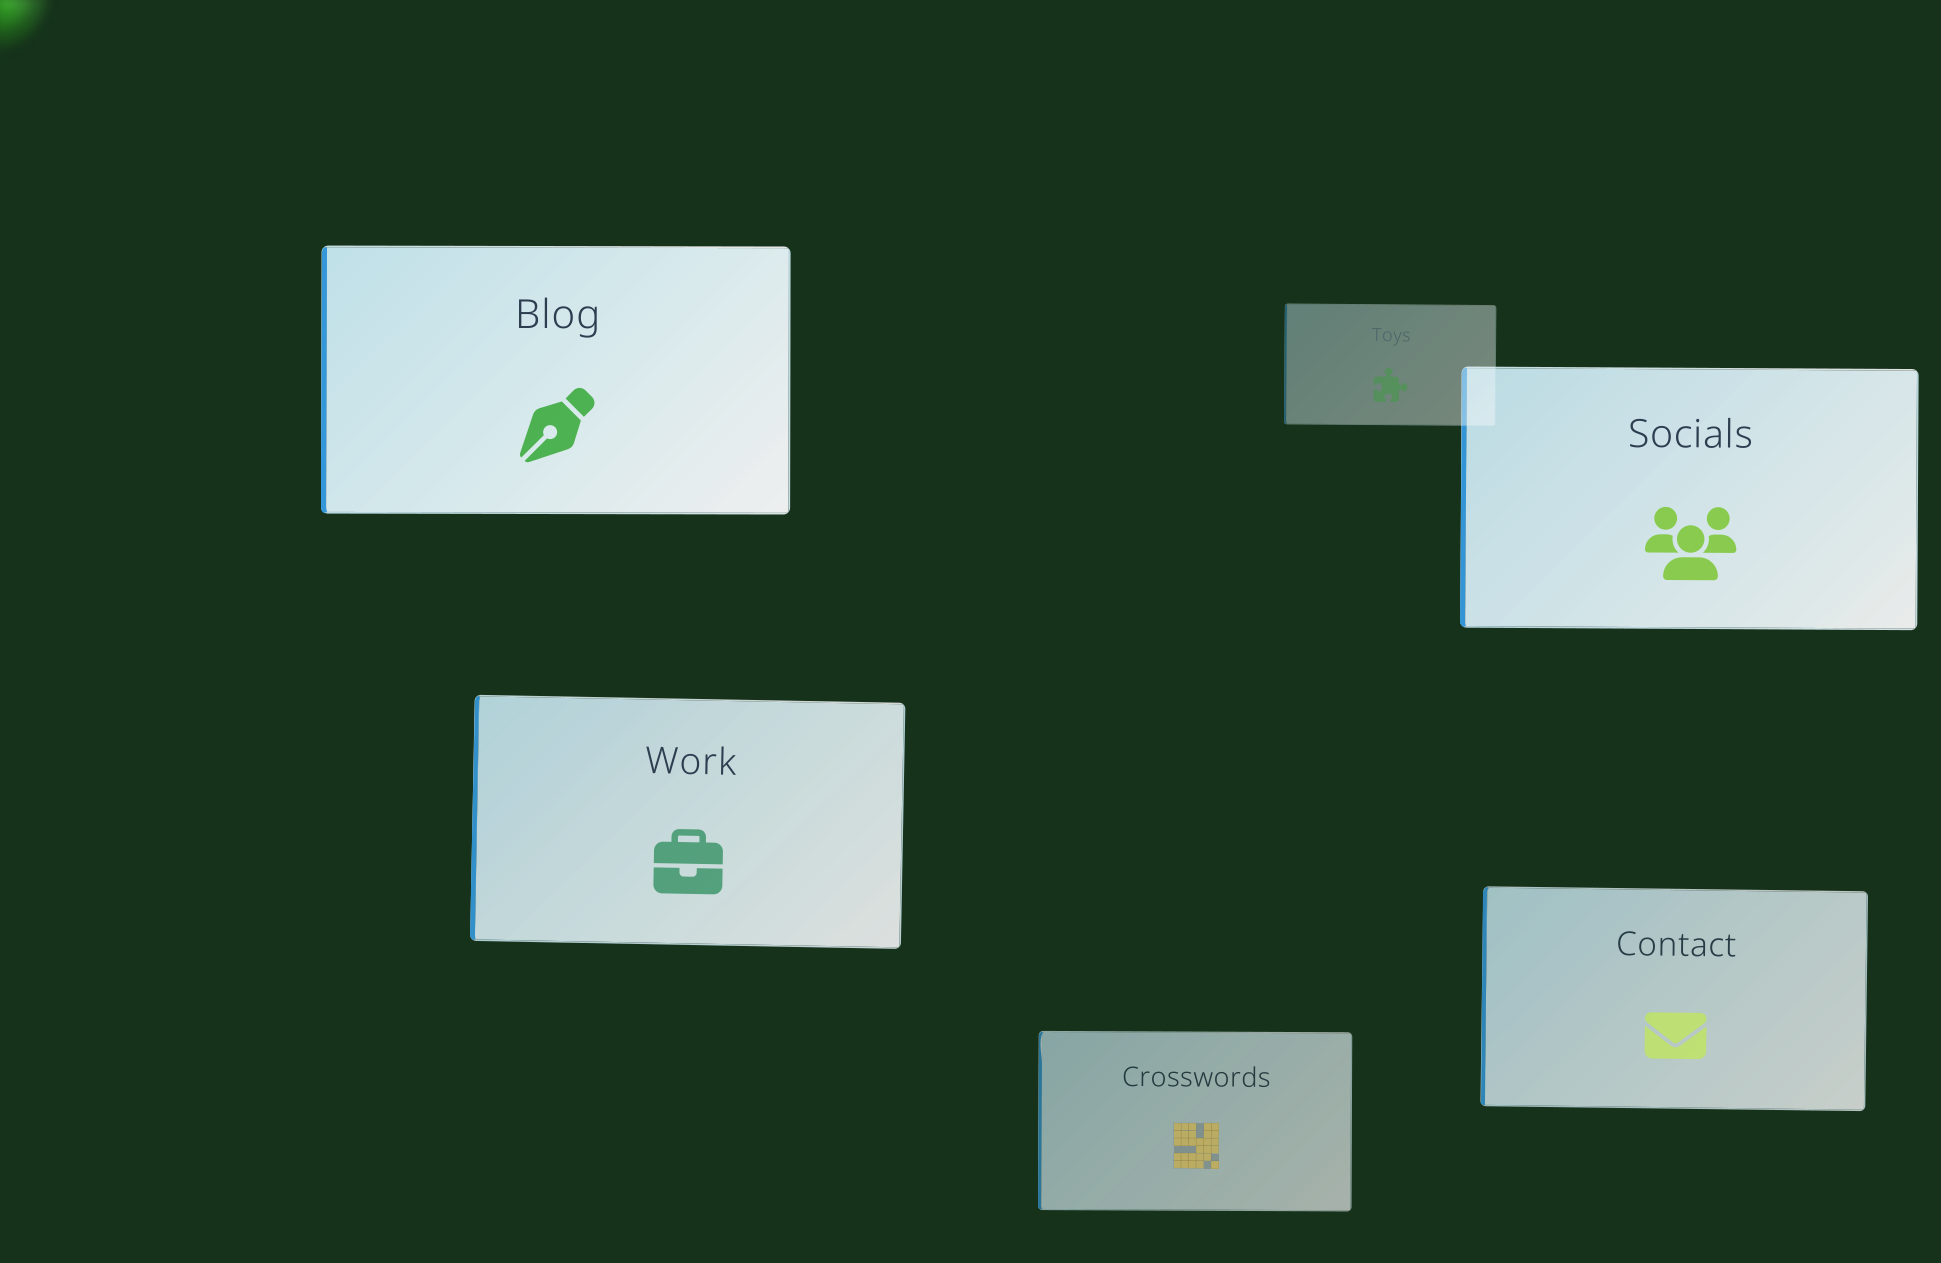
#include <cairo.h>
#include <math.h>
#include <stddef.h>


static void spaced_text(cairo_t *cr, double x, double y, const char *s, double letter, double word) {
    cairo_move_to(cr, x, y);
    while (*s) {
        char ch[5] = {0};
        int n = 0;
        do ch[n++] = *s++; while ((*s & 0xC0) == 0x80);
        cairo_show_text(cr, ch);
        cairo_rel_move_to(cr, letter + word * (*ch == ' '), 0);
    }
}

static void picture(cairo_t *cr, const char *path, double x, double y, double w, double h) {
    cairo_surface_t *image = cairo_image_surface_create_from_png(path);
    cairo_save(cr);
    cairo_set_source_surface(cr, image, x, y);
    cairo_rectangle(cr, x, y, w, h);
    cairo_fill(cr);
    cairo_restore(cr);
    cairo_surface_destroy(image);
}

int main(void) {
    cairo_surface_t *surface = cairo_image_surface_create(CAIRO_FORMAT_RGB24, 1941, 1263);
    cairo_t *cr = cairo_create(surface);
    cairo_font_options_t *options = cairo_font_options_create();
    cairo_font_options_set_hint_metrics(options, CAIRO_HINT_METRICS_OFF);
    cairo_font_options_set_hint_style(options, CAIRO_HINT_STYLE_NONE);
    cairo_set_font_options(cr, options);
    cairo_set_miter_limit(cr, 4);
    cairo_set_source_rgb(cr, 1, 1, 1);
    cairo_paint(cr);
    picture(cr, "img1.png", 0, 0, 1941, 1263);
    picture(cr, "img2.png", 321, 245, 470, 270);
    cairo_set_source_rgba(cr, 0, 0, 0, 0.04);
    cairo_new_path(cr);
    cairo_move_to(cr, 328, 246);
    cairo_line_to(cr, 786, 246);
    cairo_line_to(cr, 789, 248);
    cairo_line_to(cr, 788, 249);
    cairo_curve_to(cr, 787, 249, 786, 248, 784, 248);
    cairo_line_to(cr, 328, 247);
    cairo_line_to(cr, 327, 248);
    cairo_line_to(cr, 325, 247);
    cairo_close_path(cr);
    cairo_fill(cr);
    cairo_new_path(cr);
    cairo_move_to(cr, 790, 454);
    cairo_line_to(cr, 790, 508);
    cairo_curve_to(cr, 790, 510, 789, 512, 788, 513);
    cairo_line_to(cr, 787, 511);
    cairo_line_to(cr, 788, 508);
    cairo_line_to(cr, 789, 253);
    cairo_curve_to(cr, 789, 252, 789, 250, 788, 249);
    cairo_line_to(cr, 789, 248);
    cairo_line_to(cr, 791, 251);
    cairo_close_path(cr);
    cairo_fill(cr);
    cairo_new_path(cr);
    cairo_move_to(cr, 326, 514);
    cairo_line_to(cr, 324, 513);
    cairo_line_to(cr, 327, 512);
    cairo_line_to(cr, 328, 512);
    cairo_line_to(cr, 783, 513);
    cairo_curve_to(cr, 785, 513, 786, 512, 787, 511);
    cairo_line_to(cr, 788, 513);
    cairo_curve_to(cr, 787, 514, 785, 515, 783, 514);
    cairo_close_path(cr);
    cairo_fill(cr);
    cairo_set_source_rgb(cr, 0.204, 0.592, 0.855);
    cairo_new_path(cr);
    cairo_move_to(cr, 321, 461);
    cairo_line_to(cr, 322, 252);
    cairo_curve_to(cr, 322, 250, 323, 248, 325, 247);
    cairo_line_to(cr, 327, 248);
    cairo_line_to(cr, 327, 252);
    cairo_line_to(cr, 326, 507);
    cairo_curve_to(cr, 326, 509, 327, 511, 327, 512);
    cairo_line_to(cr, 324, 513);
    cairo_curve_to(cr, 322, 512, 321, 510, 321, 508);
    cairo_close_path(cr);
    cairo_fill(cr);
    cairo_select_font_face(cr, "Noto Sans Light", CAIRO_FONT_SLANT_NORMAL, CAIRO_FONT_WEIGHT_NORMAL);
    cairo_set_font_size(cr, 40);
    cairo_set_source_rgb(cr, 0.173, 0.243, 0.314);
    cairo_save(cr);
    cairo_translate(cr, 515, 328);
    cairo_rotate(cr, 0.1 * M_PI / 180);
    spaced_text(cr, 0, 0, "Blog", 1, 0);
    cairo_restore(cr);
    picture(cr, "img3.png", 519, 387, 76, 76);
    picture(cr, "img6.png", 1460, 366, 459, 265);
    cairo_set_source_rgba(cr, 0.004, 0.008, 0.004, 0.04);
    cairo_new_path(cr);
    cairo_move_to(cr, 1468, 367);
    cairo_line_to(cr, 1913, 369);
    cairo_curve_to(cr, 1914, 369, 1916, 370, 1917, 371);
    cairo_line_to(cr, 1915, 372);
    cairo_line_to(cr, 1912, 371);
    cairo_line_to(cr, 1467, 368);
    cairo_line_to(cr, 1465, 368);
    cairo_close_path(cr);
    cairo_fill(cr);
    cairo_new_path(cr);
    cairo_move_to(cr, 1918, 526);
    cairo_line_to(cr, 1917, 625);
    cairo_line_to(cr, 1915, 628);
    cairo_line_to(cr, 1914, 627);
    cairo_line_to(cr, 1916, 624);
    cairo_line_to(cr, 1917, 376);
    cairo_curve_to(cr, 1917, 375, 1917, 373, 1915, 372);
    cairo_line_to(cr, 1917, 371);
    cairo_line_to(cr, 1919, 374);
    cairo_close_path(cr);
    cairo_fill(cr);
    cairo_new_path(cr);
    cairo_move_to(cr, 1465, 628);
    cairo_line_to(cr, 1463, 627);
    cairo_line_to(cr, 1466, 626);
    cairo_line_to(cr, 1911, 629);
    cairo_line_to(cr, 1914, 627);
    cairo_line_to(cr, 1915, 628);
    cairo_curve_to(cr, 1914, 629, 1913, 630, 1911, 630);
    cairo_close_path(cr);
    cairo_fill(cr);
    cairo_set_source_rgb(cr, 0.2, 0.584, 0.835);
    cairo_new_path(cr);
    cairo_move_to(cr, 1461, 511);
    cairo_line_to(cr, 1462, 373);
    cairo_curve_to(cr, 1462, 370, 1463, 369, 1465, 368);
    cairo_line_to(cr, 1467, 368);
    cairo_line_to(cr, 1465, 621);
    cairo_curve_to(cr, 1465, 622, 1465, 625, 1466, 626);
    cairo_line_to(cr, 1463, 627);
    cairo_curve_to(cr, 1462, 626, 1461, 625, 1460, 623);
    cairo_close_path(cr);
    cairo_fill(cr);
    picture(cr, "img4.png", 1284, 303, 213, 123);
    cairo_set_source_rgba(cr, 0.047, 0.106, 0.059, 0.04);
    cairo_set_fill_rule(cr, CAIRO_FILL_RULE_EVEN_ODD);
    cairo_new_path(cr);
    cairo_move_to(cr, 1288, 304);
    cairo_line_to(cr, 1287, 304);
    cairo_close_path(cr);
    cairo_move_to(cr, 1288, 304);
    cairo_line_to(cr, 1463, 305);
    cairo_curve_to(cr, 1468, 305, 1494, 304, 1495, 306);
    cairo_line_to(cr, 1493, 306);
    cairo_close_path(cr);
    cairo_fill(cr);
    cairo_set_source_rgb(cr, 0.137, 0.376, 0.443);
    cairo_set_fill_rule(cr, CAIRO_FILL_RULE_WINDING);
    cairo_new_path(cr);
    cairo_move_to(cr, 1287, 423);
    cairo_line_to(cr, 1286, 424);
    cairo_curve_to(cr, 1285, 423, 1284, 422, 1284, 421);
    cairo_line_to(cr, 1285, 307);
    cairo_curve_to(cr, 1285, 305, 1286, 305, 1287, 304);
    cairo_line_to(cr, 1286, 421);
    cairo_close_path(cr);
    cairo_fill(cr);
    cairo_set_font_size(cr, 18);
    cairo_set_source_rgb(cr, 0.306, 0.388, 0.4);
    cairo_save(cr);
    cairo_translate(cr, 1372, 341);
    cairo_rotate(cr, 0.4 * M_PI / 180);
    spaced_text(cr, 0, 0, "Toys", 0.5, 0);
    cairo_restore(cr);
    picture(cr, "img5.png", 1373, 368, 35, 34);
    cairo_set_font_size(cr, 39);
    cairo_set_source_rgb(cr, 0.173, 0.243, 0.314);
    cairo_save(cr);
    cairo_translate(cr, 1628, 447);
    cairo_rotate(cr, 0.3 * M_PI / 180);
    spaced_text(cr, 0, 0, "Socials", 0.75, 0);
    cairo_restore(cr);
    picture(cr, "img7.png", 1645, 506, 92, 75);
    picture(cr, "img8.png", 470, 694, 436, 255);
    cairo_set_source_rgba(cr, 0.008, 0.016, 0.008, 0.04);
    cairo_new_path(cr);
    cairo_move_to(cr, 481, 695);
    cairo_line_to(cr, 478, 696);
    cairo_line_to(cr, 480, 697);
    cairo_line_to(cr, 481, 696);
    cairo_line_to(cr, 899, 704);
    cairo_curve_to(cr, 900, 704, 902, 704, 903, 705);
    cairo_curve_to(cr, 902, 704, 901, 703, 899, 703);
    cairo_close_path(cr);
    cairo_fill(cr);
    cairo_new_path(cr);
    cairo_move_to(cr, 901, 944);
    cairo_line_to(cr, 899, 947);
    cairo_line_to(cr, 898, 946);
    cairo_line_to(cr, 899, 943);
    cairo_line_to(cr, 904, 709);
    cairo_curve_to(cr, 904, 708, 904, 706, 903, 705);
    cairo_line_to(cr, 905, 708);
    cairo_close_path(cr);
    cairo_fill(cr);
    cairo_new_path(cr);
    cairo_move_to(cr, 476, 941);
    cairo_line_to(cr, 473, 940);
    cairo_line_to(cr, 476, 939);
    cairo_line_to(cr, 895, 947);
    cairo_curve_to(cr, 896, 947, 897, 946, 898, 946);
    cairo_line_to(cr, 899, 947);
    cairo_line_to(cr, 896, 949);
    cairo_close_path(cr);
    cairo_fill(cr);
    cairo_set_source_rgb(cr, 0.192, 0.561, 0.792);
    cairo_new_path(cr);
    cairo_move_to(cr, 472, 838);
    cairo_line_to(cr, 475, 701);
    cairo_curve_to(cr, 475, 699, 476, 697, 478, 696);
    cairo_line_to(cr, 480, 697);
    cairo_line_to(cr, 479, 701);
    cairo_line_to(cr, 475, 935);
    cairo_curve_to(cr, 475, 936, 475, 939, 476, 939);
    cairo_line_to(cr, 473, 940);
    cairo_curve_to(cr, 472, 939, 471, 938, 470, 936);
    cairo_close_path(cr);
    cairo_fill(cr);
    cairo_set_font_size(cr, 37);
    cairo_set_source_rgb(cr, 0.173, 0.243, 0.314);
    cairo_save(cr);
    cairo_translate(cr, 645, 773);
    cairo_rotate(cr, 1.1 * M_PI / 180);
    spaced_text(cr, 0, 0, "Work", 1, 0);
    cairo_restore(cr);
    picture(cr, "img9.png", 653, 829, 70, 66);
    picture(cr, "img10.png", 1480, 886, 388, 226);
    cairo_set_source_rgba(cr, 0.016, 0.035, 0.02, 0.04);
    cairo_new_path(cr);
    cairo_move_to(cr, 1489, 888);
    cairo_line_to(cr, 1486, 887);
    cairo_line_to(cr, 1487, 886);
    cairo_line_to(cr, 1864, 891);
    cairo_line_to(cr, 1867, 893);
    cairo_line_to(cr, 1866, 894);
    cairo_line_to(cr, 1863, 893);
    cairo_close_path(cr);
    cairo_fill(cr);
    cairo_new_path(cr);
    cairo_move_to(cr, 1867, 893);
    cairo_line_to(cr, 1868, 896);
    cairo_line_to(cr, 1865, 1106);
    cairo_curve_to(cr, 1865, 1107, 1865, 1109, 1864, 1110);
    cairo_line_to(cr, 1863, 1109);
    cairo_line_to(cr, 1864, 1106);
    cairo_line_to(cr, 1867, 897);
    cairo_curve_to(cr, 1867, 896, 1867, 894, 1866, 894);
    cairo_close_path(cr);
    cairo_fill(cr);
    cairo_new_path(cr);
    cairo_move_to(cr, 1864, 1110);
    cairo_curve_to(cr, 1863, 1110, 1862, 1111, 1860, 1111);
    cairo_line_to(cr, 1486, 1106);
    cairo_line_to(cr, 1483, 1105);
    cairo_line_to(cr, 1485, 1105);
    cairo_line_to(cr, 1486, 1105);
    cairo_line_to(cr, 1860, 1110);
    cairo_line_to(cr, 1863, 1109);
    cairo_close_path(cr);
    cairo_fill(cr);
    cairo_set_source_rgb(cr, 0.18, 0.522, 0.718);
    cairo_new_path(cr);
    cairo_move_to(cr, 1483, 891);
    cairo_line_to(cr, 1486, 887);
    cairo_line_to(cr, 1489, 888);
    cairo_curve_to(cr, 1488, 889, 1487, 890, 1487, 892);
    cairo_line_to(cr, 1485, 1101);
    cairo_line_to(cr, 1485, 1105);
    cairo_line_to(cr, 1483, 1105);
    cairo_curve_to(cr, 1481, 1104, 1480, 1103, 1481, 1101);
    cairo_close_path(cr);
    cairo_fill(cr);
    cairo_set_font_size(cr, 33);
    cairo_set_source_rgb(cr, 0.157, 0.235, 0.275);
    cairo_save(cr);
    cairo_translate(cr, 1616, 955);
    cairo_rotate(cr, 0.7 * M_PI / 180);
    spaced_text(cr, 0, 0, "Contact", 0.75, 0);
    cairo_restore(cr);
    picture(cr, "img11.png", 1644, 1012, 63, 48);
    picture(cr, "img12.png", 1038, 1030, 315, 182);
    cairo_set_source_rgba(cr, 0.027, 0.067, 0.035, 0.04);
    cairo_new_path(cr);
    cairo_move_to(cr, 1043, 1031);
    cairo_line_to(cr, 1349, 1032);
    cairo_line_to(cr, 1351, 1034);
    cairo_line_to(cr, 1350, 1034);
    cairo_curve_to(cr, 1350, 1034, 1349, 1033, 1348, 1033);
    cairo_line_to(cr, 1043, 1032);
    cairo_line_to(cr, 1041, 1032);
    cairo_close_path(cr);
    cairo_fill(cr);
    cairo_new_path(cr);
    cairo_move_to(cr, 1351, 1034);
    cairo_curve_to(cr, 1352, 1034, 1352, 1036, 1352, 1037);
    cairo_line_to(cr, 1351, 1207);
    cairo_curve_to(cr, 1351, 1208, 1351, 1209, 1350, 1210);
    cairo_line_to(cr, 1349, 1209);
    cairo_line_to(cr, 1350, 1207);
    cairo_line_to(cr, 1351, 1037);
    cairo_line_to(cr, 1350, 1034);
    cairo_close_path(cr);
    cairo_fill(cr);
    cairo_new_path(cr);
    cairo_move_to(cr, 1350, 1210);
    cairo_line_to(cr, 1347, 1211);
    cairo_line_to(cr, 1042, 1210);
    cairo_line_to(cr, 1040, 1209);
    cairo_line_to(cr, 1042, 1209);
    cairo_line_to(cr, 1347, 1210);
    cairo_line_to(cr, 1349, 1209);
    cairo_close_path(cr);
    cairo_fill(cr);
    cairo_set_source_rgb(cr, 0.165, 0.463, 0.604);
    cairo_new_path(cr);
    cairo_move_to(cr, 1041, 1032);
    cairo_line_to(cr, 1039, 1034);
    cairo_line_to(cr, 1038, 1206);
    cairo_curve_to(cr, 1038, 1207, 1039, 1209, 1040, 1209);
    cairo_line_to(cr, 1042, 1209);
    cairo_line_to(cr, 1041, 1206);
    cairo_line_to(cr, 1042, 1064);
    cairo_curve_to(cr, 1042, 1053, 1038, 1042, 1043, 1032);
    cairo_close_path(cr);
    cairo_fill(cr);
    cairo_set_font_size(cr, 27);
    cairo_set_source_rgb(cr, 0.145, 0.227, 0.243);
    cairo_save(cr);
    cairo_translate(cr, 1122, 1086);
    cairo_rotate(cr, 0.3 * M_PI / 180);
    spaced_text(cr, 0, 0, "Crosswords", 0.5, 0);
    cairo_restore(cr);
    picture(cr, "img13.png", 1173, 1122, 46, 47);
    cairo_surface_write_to_png(surface, "page.png");
    cairo_font_options_destroy(options);
    cairo_destroy(cr);
    cairo_surface_destroy(surface);
    return 0;
}
